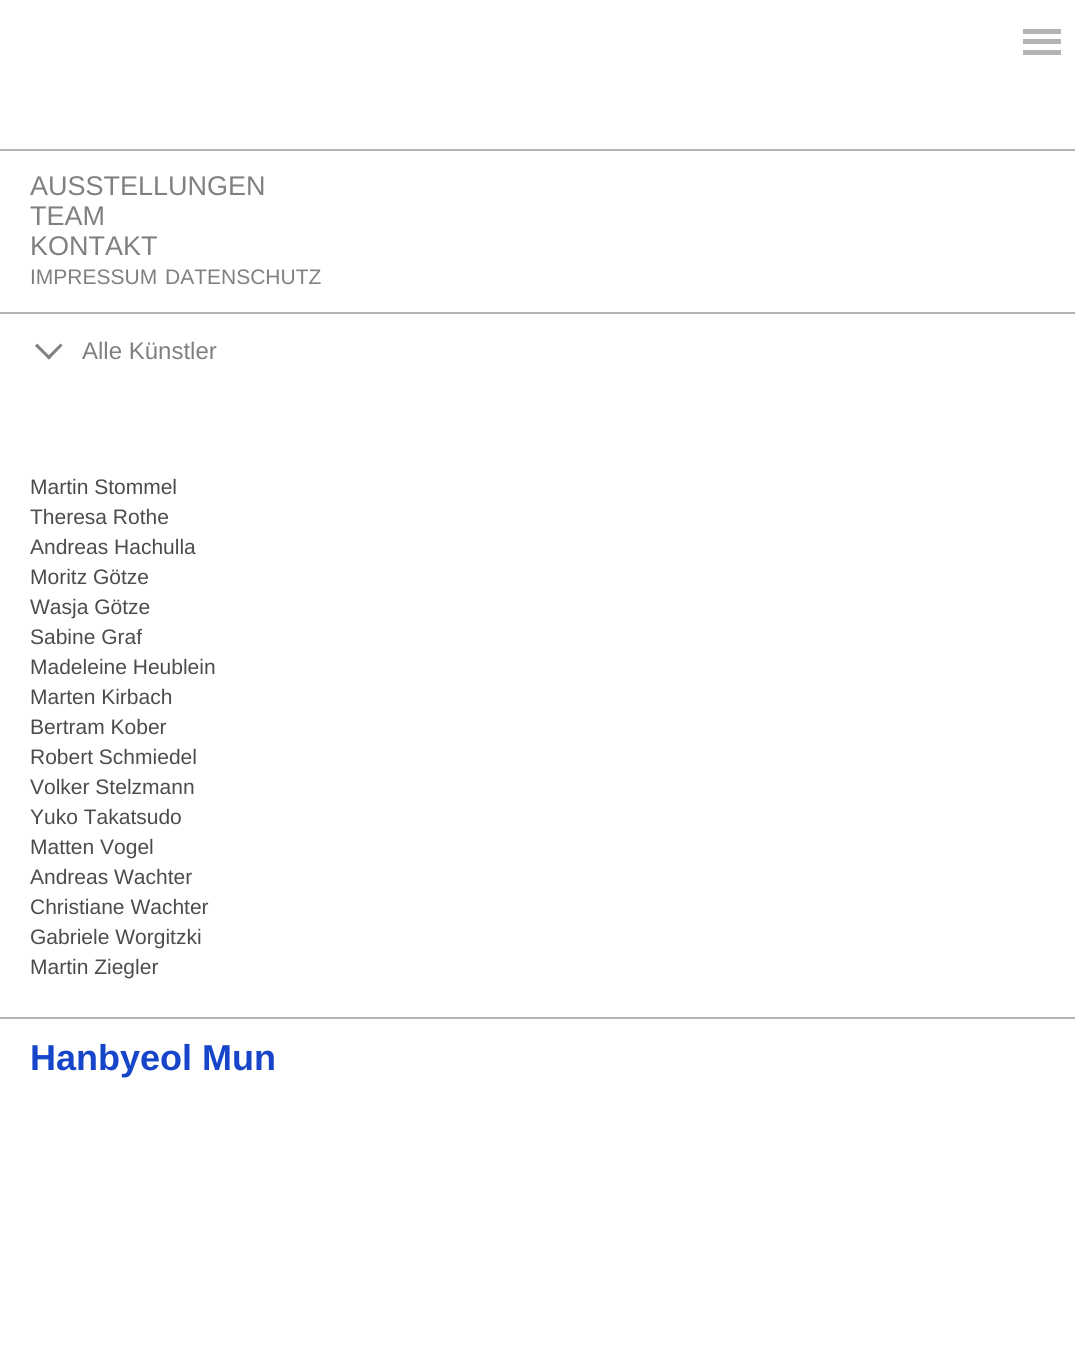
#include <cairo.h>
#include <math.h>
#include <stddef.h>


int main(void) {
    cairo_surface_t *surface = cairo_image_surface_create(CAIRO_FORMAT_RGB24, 1075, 1363);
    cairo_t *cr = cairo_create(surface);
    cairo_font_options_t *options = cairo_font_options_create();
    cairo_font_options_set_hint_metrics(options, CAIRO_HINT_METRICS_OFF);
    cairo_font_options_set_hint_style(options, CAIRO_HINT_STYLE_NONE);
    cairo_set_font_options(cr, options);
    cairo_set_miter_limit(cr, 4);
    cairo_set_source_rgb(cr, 1, 1, 1);
    cairo_paint(cr);
    cairo_set_source_rgb(cr, 0.702, 0.702, 0.702);
    cairo_rectangle(cr, 0, 149, 1075, 2);
    cairo_fill(cr);
    cairo_rectangle(cr, 1023, 29, 38, 5);
    cairo_fill(cr);
    cairo_rectangle(cr, 1023, 39, 38, 5);
    cairo_fill(cr);
    cairo_rectangle(cr, 1023, 50, 38, 5);
    cairo_fill(cr);
    cairo_rectangle(cr, 0, 312, 1075, 2);
    cairo_fill(cr);
    cairo_select_font_face(cr, "Liberation Sans", CAIRO_FONT_SLANT_NORMAL, CAIRO_FONT_WEIGHT_NORMAL);
    cairo_set_font_size(cr, 27);
    cairo_set_source_rgb(cr, 0.502, 0.502, 0.502);
    cairo_move_to(cr, 30, 195);
    cairo_show_text(cr, "AUSSTELLUNGEN");
    cairo_move_to(cr, 30, 225);
    cairo_show_text(cr, "TEAM");
    cairo_move_to(cr, 30, 255);
    cairo_show_text(cr, "KONTAKT");
    cairo_set_font_size(cr, 21);
    cairo_move_to(cr, 30, 284);
    cairo_show_text(cr, "IMPRESSUM");
    cairo_move_to(cr, 165, 284);
    cairo_show_text(cr, "DATENSCHUTZ");
    cairo_set_source_rgb(cr, 0.702, 0.702, 0.702);
    cairo_rectangle(cr, 0, 1017, 1075, 2);
    cairo_fill(cr);
    cairo_set_source_rgb(cr, 0.502, 0.502, 0.502);
    cairo_new_path(cr);
    cairo_move_to(cr, 46.5, 357.5);
    cairo_line_to(cr, 60.5, 343.5);
    cairo_line_to(cr, 62.5, 345.5);
    cairo_line_to(cr, 49, 359.5);
    cairo_close_path(cr);
    cairo_fill(cr);
    cairo_new_path(cr);
    cairo_move_to(cr, 35, 346);
    cairo_line_to(cr, 37, 343.5);
    cairo_line_to(cr, 51, 357.5);
    cairo_line_to(cr, 49, 359.5);
    cairo_close_path(cr);
    cairo_fill(cr);
    cairo_set_font_size(cr, 24);
    cairo_move_to(cr, 82, 359);
    cairo_show_text(cr, "Alle Künstler");
    cairo_set_font_size(cr, 21);
    cairo_set_source_rgb(cr, 0.298, 0.298, 0.298);
    cairo_move_to(cr, 30, 494);
    cairo_show_text(cr, "Martin Stommel");
    cairo_move_to(cr, 30, 524);
    cairo_show_text(cr, "Theresa Rothe");
    cairo_move_to(cr, 30, 554);
    cairo_show_text(cr, "Andreas Hachulla");
    cairo_move_to(cr, 30, 584);
    cairo_show_text(cr, "Moritz Götze");
    cairo_move_to(cr, 30, 614);
    cairo_show_text(cr, "Wasja Götze");
    cairo_move_to(cr, 30, 644);
    cairo_show_text(cr, "Sabine Graf");
    cairo_move_to(cr, 30, 674);
    cairo_show_text(cr, "Madeleine Heublein");
    cairo_move_to(cr, 30, 704);
    cairo_show_text(cr, "Marten Kirbach");
    cairo_move_to(cr, 30, 734);
    cairo_show_text(cr, "Bertram Kober");
    cairo_move_to(cr, 30, 764);
    cairo_show_text(cr, "Robert Schmiedel");
    cairo_move_to(cr, 30, 794);
    cairo_show_text(cr, "Volker Stelzmann");
    cairo_move_to(cr, 30, 824);
    cairo_show_text(cr, "Yuko Takatsudo");
    cairo_move_to(cr, 30, 854);
    cairo_show_text(cr, "Matten Vogel");
    cairo_move_to(cr, 30, 884);
    cairo_show_text(cr, "Andreas Wachter");
    cairo_move_to(cr, 30, 914);
    cairo_show_text(cr, "Christiane Wachter");
    cairo_move_to(cr, 30, 944);
    cairo_show_text(cr, "Gabriele Worgitzki");
    cairo_move_to(cr, 30, 974);
    cairo_show_text(cr, "Martin Ziegler");
    cairo_select_font_face(cr, "Liberation Sans", CAIRO_FONT_SLANT_NORMAL, CAIRO_FONT_WEIGHT_BOLD);
    cairo_set_font_size(cr, 36);
    cairo_set_source_rgb(cr, 0.09, 0.271, 0.788);
    cairo_move_to(cr, 30, 1070);
    cairo_show_text(cr, "Hanbyeol Mun");
    cairo_surface_write_to_png(surface, "page.png");
    cairo_font_options_destroy(options);
    cairo_destroy(cr);
    cairo_surface_destroy(surface);
    return 0;
}
